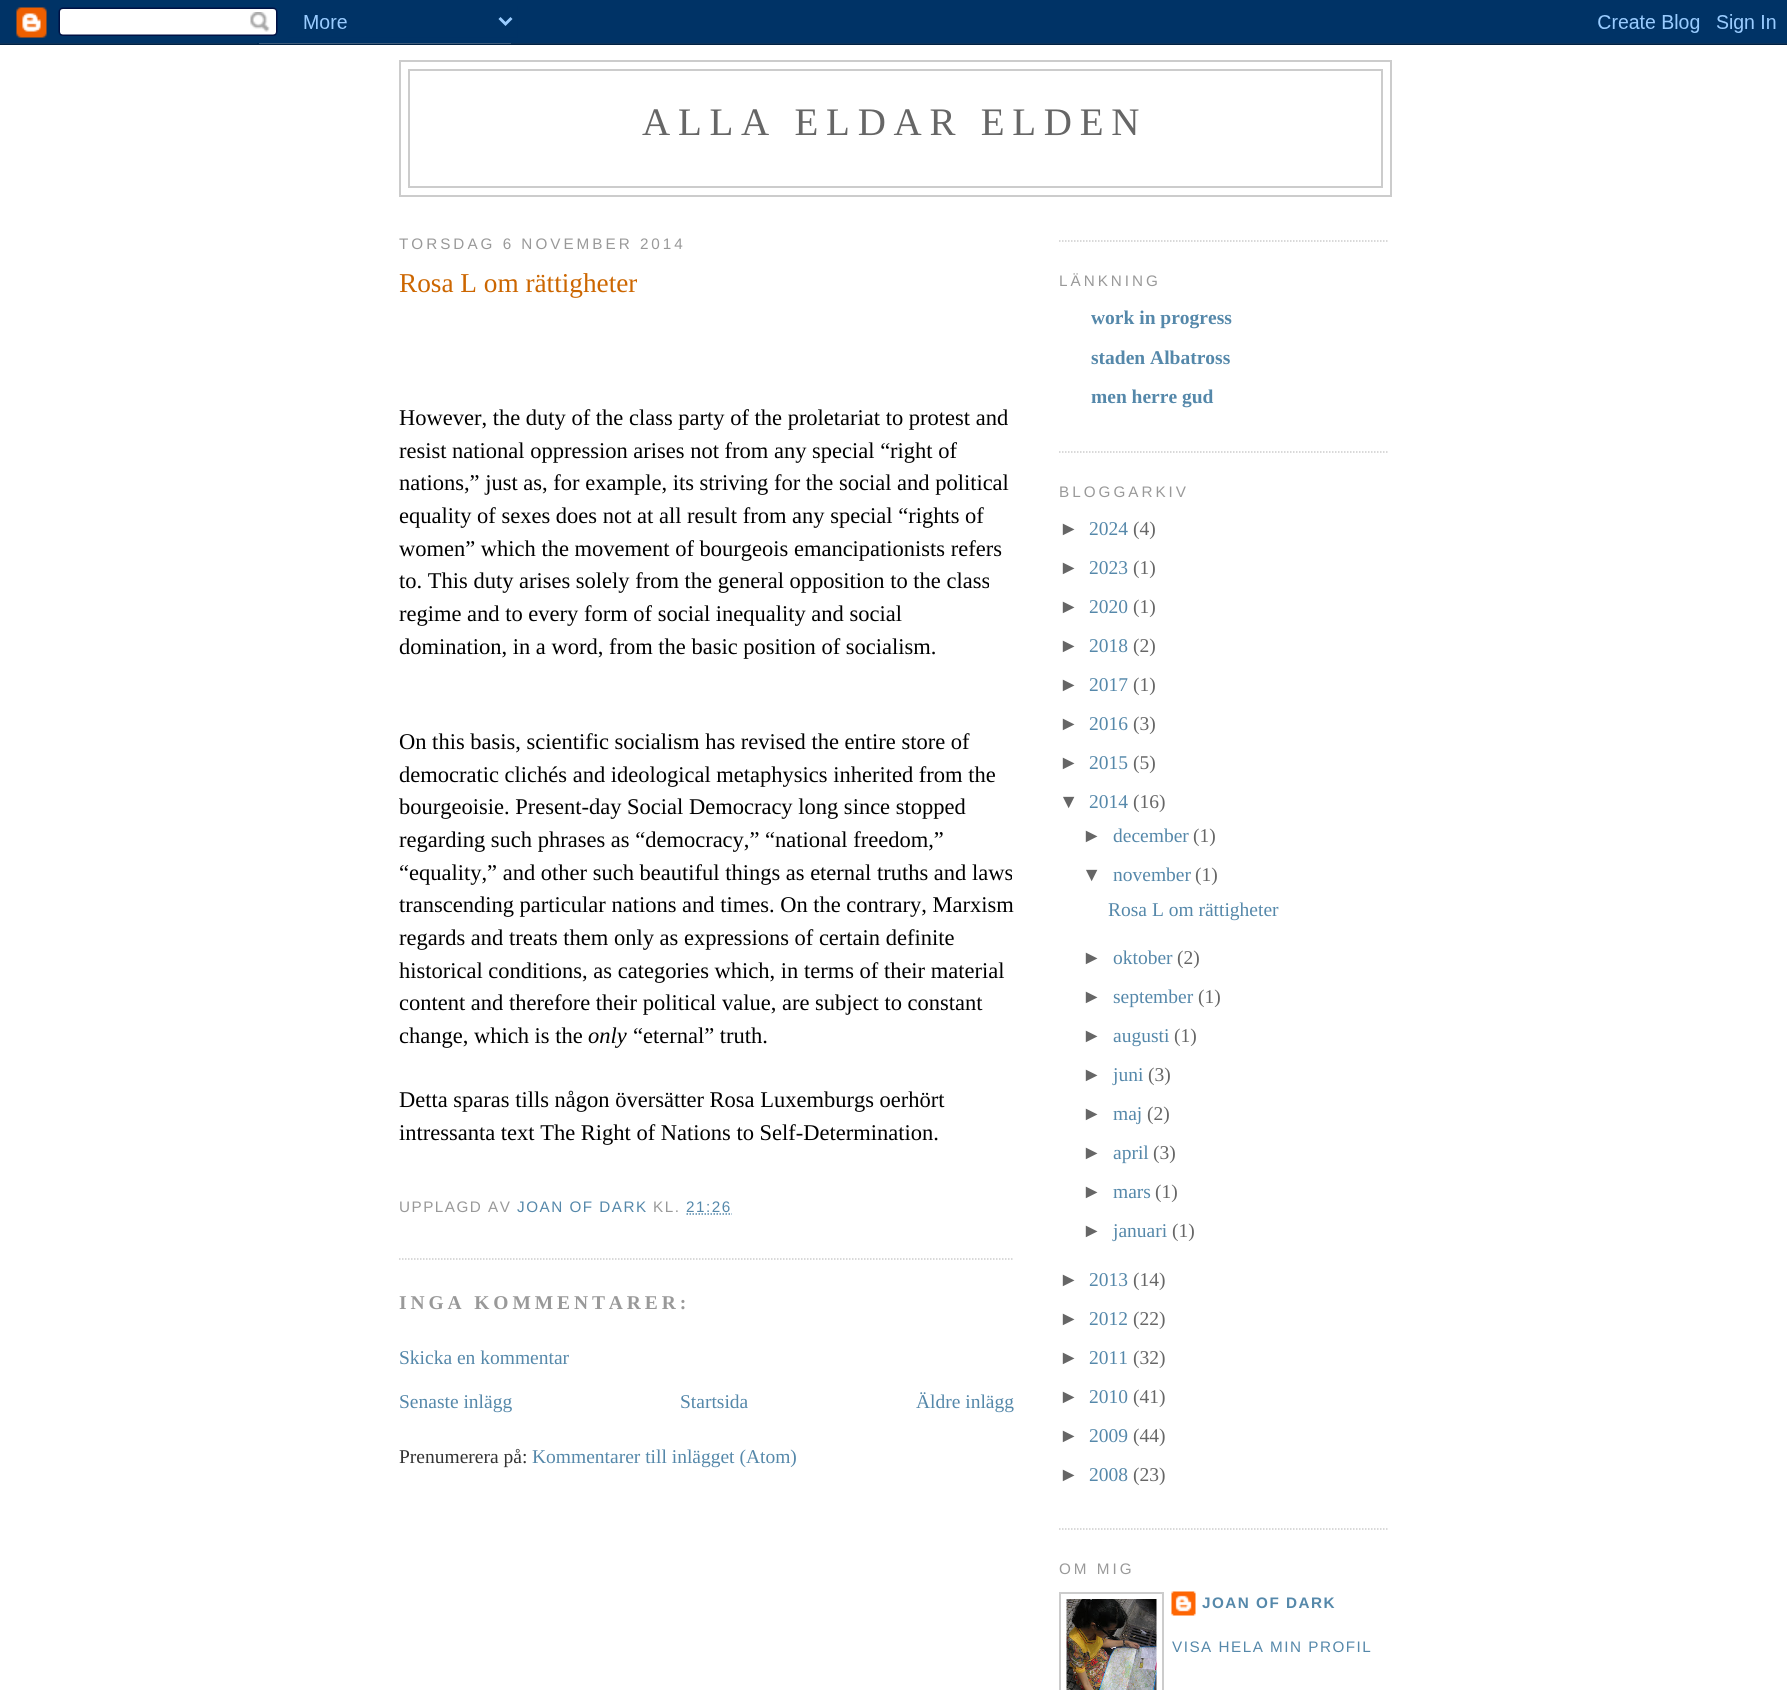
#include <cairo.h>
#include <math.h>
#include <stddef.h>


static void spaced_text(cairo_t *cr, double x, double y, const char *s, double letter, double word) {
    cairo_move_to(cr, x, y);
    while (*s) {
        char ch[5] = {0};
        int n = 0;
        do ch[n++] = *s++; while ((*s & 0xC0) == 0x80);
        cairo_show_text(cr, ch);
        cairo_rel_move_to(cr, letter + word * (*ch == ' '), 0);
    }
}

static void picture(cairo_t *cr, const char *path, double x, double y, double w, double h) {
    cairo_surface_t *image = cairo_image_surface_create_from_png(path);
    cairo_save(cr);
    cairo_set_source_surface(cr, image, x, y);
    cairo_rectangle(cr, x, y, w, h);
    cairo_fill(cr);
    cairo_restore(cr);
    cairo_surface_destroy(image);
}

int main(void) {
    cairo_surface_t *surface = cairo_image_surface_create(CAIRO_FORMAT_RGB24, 1787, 1690);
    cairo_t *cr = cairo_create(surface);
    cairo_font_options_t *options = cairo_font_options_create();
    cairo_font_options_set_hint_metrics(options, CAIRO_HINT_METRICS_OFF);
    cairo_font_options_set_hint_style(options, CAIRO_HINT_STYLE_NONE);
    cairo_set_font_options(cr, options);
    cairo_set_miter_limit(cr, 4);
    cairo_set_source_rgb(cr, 1, 1, 1);
    cairo_paint(cr);
    picture(cr, "img1.png", 0, 0, 1787, 45);
    cairo_rectangle(cr, 400, 61, 991, 135);
    cairo_set_source_rgb(cr, 0.8, 0.8, 0.8);
    cairo_stroke(cr);
    cairo_rectangle(cr, 409, 70, 973, 117);
    cairo_stroke(cr);
    cairo_select_font_face(cr, "Liberation Serif", CAIRO_FONT_SLANT_NORMAL, CAIRO_FONT_WEIGHT_NORMAL);
    cairo_set_font_size(cr, 39);
    cairo_set_source_rgb(cr, 0.4, 0.4, 0.4);
    spaced_text(cr, 642, 135, "ALLA ELDAR ELDEN", 7.75, 0);
    cairo_select_font_face(cr, "Liberation Sans", CAIRO_FONT_SLANT_NORMAL, CAIRO_FONT_WEIGHT_NORMAL);
    cairo_set_font_size(cr, 15.25);
    cairo_set_source_rgb(cr, 0.6, 0.6, 0.6);
    spaced_text(cr, 399, 249, "TORSDAG 6 NOVEMBER 2014", 3, 0);
    cairo_new_path(cr);
    cairo_move_to(cr, 399, 1259);
    cairo_line_to(cr, 1014, 1259);
    cairo_set_source_rgb(cr, 0.8, 0.8, 0.8);
    cairo_set_line_width(cr, 1.5);
    cairo_set_dash(cr, (double[]){1.5, 1.5}, 2, 0);
    cairo_stroke(cr);
    cairo_select_font_face(cr, "Liberation Serif", CAIRO_FONT_SLANT_NORMAL, CAIRO_FONT_WEIGHT_NORMAL);
    cairo_set_font_size(cr, 27.25);
    cairo_set_source_rgb(cr, 0.8, 0.4, 0);
    cairo_move_to(cr, 399, 292);
    cairo_show_text(cr, "Rosa L om rättigheter");
    cairo_set_font_size(cr, 22.5);
    cairo_set_source_rgb(cr, 0, 0, 0);
    cairo_move_to(cr, 399, 425);
    cairo_show_text(cr, "However, the duty of the class party of the proletariat to protest and");
    cairo_move_to(cr, 399, 458);
    cairo_show_text(cr, "resist national oppression arises not from any special “right of");
    cairo_move_to(cr, 399, 490);
    cairo_show_text(cr, "nations,” just as, for example, its striving for the social and political");
    cairo_move_to(cr, 399, 523);
    cairo_show_text(cr, "equality of sexes does not at all result from any special “rights of");
    cairo_move_to(cr, 399, 556);
    cairo_show_text(cr, "women” which the movement of bourgeois emancipationists refers");
    cairo_move_to(cr, 399, 588);
    cairo_show_text(cr, "to. This duty arises solely from the general opposition to the class");
    cairo_move_to(cr, 399, 621);
    cairo_show_text(cr, "regime and to every form of social inequality and social");
    cairo_move_to(cr, 399, 654);
    cairo_show_text(cr, "domination, in a word, from the basic position of socialism.");
    cairo_move_to(cr, 399, 749);
    cairo_show_text(cr, "On this basis, scientific socialism has revised the entire store of");
    cairo_move_to(cr, 399, 782);
    cairo_show_text(cr, "democratic clichés and ideological metaphysics inherited from the");
    cairo_move_to(cr, 399, 814);
    cairo_show_text(cr, "bourgeoisie. Present-day Social Democracy long since stopped");
    cairo_move_to(cr, 399, 847);
    cairo_show_text(cr, "regarding such phrases as “democracy,” “national freedom,”");
    cairo_move_to(cr, 399, 880);
    cairo_show_text(cr, "“equality,” and other such beautiful things as eternal truths and laws");
    cairo_move_to(cr, 399, 912);
    cairo_show_text(cr, "transcending particular nations and times. On the contrary, Marxism");
    cairo_move_to(cr, 399, 945);
    cairo_show_text(cr, "regards and treats them only as expressions of certain definite");
    cairo_move_to(cr, 399, 978);
    cairo_show_text(cr, "historical conditions, as categories which, in terms of their material");
    cairo_move_to(cr, 399, 1010);
    cairo_show_text(cr, "content and therefore their political value, are subject to constant");
    cairo_move_to(cr, 399, 1043);
    cairo_show_text(cr, "change, which is the");
    cairo_select_font_face(cr, "Liberation Serif", CAIRO_FONT_SLANT_ITALIC, CAIRO_FONT_WEIGHT_NORMAL);
    cairo_move_to(cr, 588, 1043);
    cairo_show_text(cr, "only");
    cairo_select_font_face(cr, "Liberation Serif", CAIRO_FONT_SLANT_NORMAL, CAIRO_FONT_WEIGHT_NORMAL);
    cairo_move_to(cr, 633, 1043);
    cairo_show_text(cr, "“eternal” truth.");
    cairo_move_to(cr, 399, 1107);
    cairo_show_text(cr, "Detta sparas tills någon översätter Rosa Luxemburgs oerhört");
    cairo_move_to(cr, 399, 1140);
    cairo_show_text(cr, "intressanta text The Right of Nations to Self-Determination.");
    cairo_select_font_face(cr, "Liberation Sans", CAIRO_FONT_SLANT_NORMAL, CAIRO_FONT_WEIGHT_NORMAL);
    cairo_set_font_size(cr, 15.25);
    cairo_set_source_rgb(cr, 0.6, 0.6, 0.6);
    spaced_text(cr, 399, 1212, "UPPLAGD AV", 1.5, 0);
    cairo_set_source_rgb(cr, 0.333, 0.533, 0.667);
    spaced_text(cr, 517, 1212, "JOAN OF DARK", 1.5, 0);
    cairo_set_source_rgb(cr, 0.6, 0.6, 0.6);
    spaced_text(cr, 653, 1212, "KL.", 1.5, 0);
    cairo_set_source_rgb(cr, 0.333, 0.533, 0.667);
    spaced_text(cr, 686, 1212, "21:26", 1.5, 0);
    cairo_new_path(cr);
    cairo_move_to(cr, 686.5, 1214);
    cairo_line_to(cr, 732, 1214);
    cairo_stroke(cr);
    cairo_select_font_face(cr, "Liberation Serif", CAIRO_FONT_SLANT_NORMAL, CAIRO_FONT_WEIGHT_BOLD);
    cairo_set_font_size(cr, 19.5);
    cairo_set_source_rgb(cr, 0.6, 0.6, 0.6);
    spaced_text(cr, 399, 1309, "INGA KOMMENTARER:", 3.9, 0);
    cairo_select_font_face(cr, "Liberation Serif", CAIRO_FONT_SLANT_NORMAL, CAIRO_FONT_WEIGHT_NORMAL);
    cairo_set_source_rgb(cr, 0.333, 0.533, 0.667);
    cairo_move_to(cr, 399, 1364);
    cairo_show_text(cr, "Skicka en kommentar");
    cairo_move_to(cr, 399, 1408);
    cairo_show_text(cr, "Senaste inlägg");
    cairo_move_to(cr, 680, 1408);
    cairo_show_text(cr, "Startsida");
    cairo_move_to(cr, 916, 1408);
    cairo_show_text(cr, "Äldre inlägg");
    cairo_set_source_rgb(cr, 0.2, 0.2, 0.2);
    cairo_move_to(cr, 399, 1463);
    cairo_show_text(cr, "Prenumerera på:");
    cairo_set_source_rgb(cr, 0.333, 0.533, 0.667);
    cairo_move_to(cr, 532, 1463);
    cairo_show_text(cr, "Kommentarer till inlägget (Atom)");
    cairo_new_path(cr);
    cairo_move_to(cr, 1059, 241);
    cairo_line_to(cr, 1389, 241);
    cairo_set_source_rgb(cr, 0.8, 0.8, 0.8);
    cairo_stroke(cr);
    cairo_new_path(cr);
    cairo_move_to(cr, 1059, 452);
    cairo_line_to(cr, 1389, 452);
    cairo_stroke(cr);
    cairo_select_font_face(cr, "Liberation Sans", CAIRO_FONT_SLANT_NORMAL, CAIRO_FONT_WEIGHT_NORMAL);
    cairo_set_font_size(cr, 15.25);
    cairo_set_source_rgb(cr, 0.6, 0.6, 0.6);
    spaced_text(cr, 1059, 286, "LÄNKNING", 3, 0);
    cairo_select_font_face(cr, "Liberation Serif", CAIRO_FONT_SLANT_NORMAL, CAIRO_FONT_WEIGHT_BOLD);
    cairo_set_font_size(cr, 19.5);
    cairo_set_source_rgb(cr, 0.333, 0.533, 0.667);
    cairo_move_to(cr, 1091, 324);
    cairo_show_text(cr, "work in progress");
    cairo_move_to(cr, 1091, 364);
    cairo_show_text(cr, "staden Albatross");
    cairo_move_to(cr, 1091, 403);
    cairo_show_text(cr, "men herre gud");
    cairo_new_path(cr);
    cairo_move_to(cr, 1059, 1529);
    cairo_line_to(cr, 1389, 1529);
    cairo_set_source_rgb(cr, 0.8, 0.8, 0.8);
    cairo_stroke(cr);
    cairo_select_font_face(cr, "Liberation Sans", CAIRO_FONT_SLANT_NORMAL, CAIRO_FONT_WEIGHT_NORMAL);
    cairo_set_font_size(cr, 15.25);
    cairo_set_source_rgb(cr, 0.6, 0.6, 0.6);
    spaced_text(cr, 1059, 497, "BLOGGARKIV", 3, 0);
    cairo_set_font_size(cr, 19.5);
    cairo_set_source_rgb(cr, 0.4, 0.4, 0.4);
    cairo_move_to(cr, 1059, 535);
    cairo_show_text(cr, "►");
    cairo_select_font_face(cr, "Liberation Serif", CAIRO_FONT_SLANT_NORMAL, CAIRO_FONT_WEIGHT_NORMAL);
    cairo_set_source_rgb(cr, 0.333, 0.533, 0.667);
    cairo_move_to(cr, 1089, 535);
    cairo_show_text(cr, "2024");
    cairo_set_source_rgb(cr, 0.4, 0.4, 0.4);
    cairo_move_to(cr, 1133, 535);
    cairo_show_text(cr, "(4)");
    cairo_select_font_face(cr, "Liberation Sans", CAIRO_FONT_SLANT_NORMAL, CAIRO_FONT_WEIGHT_NORMAL);
    cairo_move_to(cr, 1059, 574);
    cairo_show_text(cr, "►");
    cairo_select_font_face(cr, "Liberation Serif", CAIRO_FONT_SLANT_NORMAL, CAIRO_FONT_WEIGHT_NORMAL);
    cairo_set_source_rgb(cr, 0.333, 0.533, 0.667);
    cairo_move_to(cr, 1089, 574);
    cairo_show_text(cr, "2023");
    cairo_set_source_rgb(cr, 0.4, 0.4, 0.4);
    cairo_move_to(cr, 1133, 574);
    cairo_show_text(cr, "(1)");
    cairo_select_font_face(cr, "Liberation Sans", CAIRO_FONT_SLANT_NORMAL, CAIRO_FONT_WEIGHT_NORMAL);
    cairo_move_to(cr, 1059, 613);
    cairo_show_text(cr, "►");
    cairo_select_font_face(cr, "Liberation Serif", CAIRO_FONT_SLANT_NORMAL, CAIRO_FONT_WEIGHT_NORMAL);
    cairo_set_source_rgb(cr, 0.333, 0.533, 0.667);
    cairo_move_to(cr, 1089, 613);
    cairo_show_text(cr, "2020");
    cairo_set_source_rgb(cr, 0.4, 0.4, 0.4);
    cairo_move_to(cr, 1133, 613);
    cairo_show_text(cr, "(1)");
    cairo_select_font_face(cr, "Liberation Sans", CAIRO_FONT_SLANT_NORMAL, CAIRO_FONT_WEIGHT_NORMAL);
    cairo_move_to(cr, 1059, 652);
    cairo_show_text(cr, "►");
    cairo_select_font_face(cr, "Liberation Serif", CAIRO_FONT_SLANT_NORMAL, CAIRO_FONT_WEIGHT_NORMAL);
    cairo_set_source_rgb(cr, 0.333, 0.533, 0.667);
    cairo_move_to(cr, 1089, 652);
    cairo_show_text(cr, "2018");
    cairo_set_source_rgb(cr, 0.4, 0.4, 0.4);
    cairo_move_to(cr, 1133, 652);
    cairo_show_text(cr, "(2)");
    cairo_select_font_face(cr, "Liberation Sans", CAIRO_FONT_SLANT_NORMAL, CAIRO_FONT_WEIGHT_NORMAL);
    cairo_move_to(cr, 1059, 691);
    cairo_show_text(cr, "►");
    cairo_select_font_face(cr, "Liberation Serif", CAIRO_FONT_SLANT_NORMAL, CAIRO_FONT_WEIGHT_NORMAL);
    cairo_set_source_rgb(cr, 0.333, 0.533, 0.667);
    cairo_move_to(cr, 1089, 691);
    cairo_show_text(cr, "2017");
    cairo_set_source_rgb(cr, 0.4, 0.4, 0.4);
    cairo_move_to(cr, 1133, 691);
    cairo_show_text(cr, "(1)");
    cairo_select_font_face(cr, "Liberation Sans", CAIRO_FONT_SLANT_NORMAL, CAIRO_FONT_WEIGHT_NORMAL);
    cairo_move_to(cr, 1059, 730);
    cairo_show_text(cr, "►");
    cairo_select_font_face(cr, "Liberation Serif", CAIRO_FONT_SLANT_NORMAL, CAIRO_FONT_WEIGHT_NORMAL);
    cairo_set_source_rgb(cr, 0.333, 0.533, 0.667);
    cairo_move_to(cr, 1089, 730);
    cairo_show_text(cr, "2016");
    cairo_set_source_rgb(cr, 0.4, 0.4, 0.4);
    cairo_move_to(cr, 1133, 730);
    cairo_show_text(cr, "(3)");
    cairo_select_font_face(cr, "Liberation Sans", CAIRO_FONT_SLANT_NORMAL, CAIRO_FONT_WEIGHT_NORMAL);
    cairo_move_to(cr, 1059, 769);
    cairo_show_text(cr, "►");
    cairo_select_font_face(cr, "Liberation Serif", CAIRO_FONT_SLANT_NORMAL, CAIRO_FONT_WEIGHT_NORMAL);
    cairo_set_source_rgb(cr, 0.333, 0.533, 0.667);
    cairo_move_to(cr, 1089, 769);
    cairo_show_text(cr, "2015");
    cairo_set_source_rgb(cr, 0.4, 0.4, 0.4);
    cairo_move_to(cr, 1133, 769);
    cairo_show_text(cr, "(5)");
    cairo_select_font_face(cr, "Liberation Sans", CAIRO_FONT_SLANT_NORMAL, CAIRO_FONT_WEIGHT_NORMAL);
    cairo_move_to(cr, 1059, 808);
    cairo_show_text(cr, "▼");
    cairo_select_font_face(cr, "Liberation Serif", CAIRO_FONT_SLANT_NORMAL, CAIRO_FONT_WEIGHT_NORMAL);
    cairo_set_source_rgb(cr, 0.333, 0.533, 0.667);
    cairo_move_to(cr, 1089, 808);
    cairo_show_text(cr, "2014");
    cairo_set_source_rgb(cr, 0.4, 0.4, 0.4);
    cairo_move_to(cr, 1133, 808);
    cairo_show_text(cr, "(16)");
    cairo_select_font_face(cr, "Liberation Sans", CAIRO_FONT_SLANT_NORMAL, CAIRO_FONT_WEIGHT_NORMAL);
    cairo_move_to(cr, 1082, 842);
    cairo_show_text(cr, "►");
    cairo_select_font_face(cr, "Liberation Serif", CAIRO_FONT_SLANT_NORMAL, CAIRO_FONT_WEIGHT_NORMAL);
    cairo_set_source_rgb(cr, 0.333, 0.533, 0.667);
    cairo_move_to(cr, 1113, 842);
    cairo_show_text(cr, "december");
    cairo_set_source_rgb(cr, 0.4, 0.4, 0.4);
    cairo_move_to(cr, 1193, 842);
    cairo_show_text(cr, "(1)");
    cairo_select_font_face(cr, "Liberation Sans", CAIRO_FONT_SLANT_NORMAL, CAIRO_FONT_WEIGHT_NORMAL);
    cairo_move_to(cr, 1082, 881);
    cairo_show_text(cr, "▼");
    cairo_select_font_face(cr, "Liberation Serif", CAIRO_FONT_SLANT_NORMAL, CAIRO_FONT_WEIGHT_NORMAL);
    cairo_set_source_rgb(cr, 0.333, 0.533, 0.667);
    cairo_move_to(cr, 1113, 881);
    cairo_show_text(cr, "november");
    cairo_set_source_rgb(cr, 0.4, 0.4, 0.4);
    cairo_move_to(cr, 1195, 881);
    cairo_show_text(cr, "(1)");
    cairo_set_source_rgb(cr, 0.333, 0.533, 0.667);
    cairo_move_to(cr, 1108, 916);
    cairo_show_text(cr, "Rosa L om rättigheter");
    cairo_select_font_face(cr, "Liberation Sans", CAIRO_FONT_SLANT_NORMAL, CAIRO_FONT_WEIGHT_NORMAL);
    cairo_set_source_rgb(cr, 0.4, 0.4, 0.4);
    cairo_move_to(cr, 1082, 964);
    cairo_show_text(cr, "►");
    cairo_select_font_face(cr, "Liberation Serif", CAIRO_FONT_SLANT_NORMAL, CAIRO_FONT_WEIGHT_NORMAL);
    cairo_set_source_rgb(cr, 0.333, 0.533, 0.667);
    cairo_move_to(cr, 1113, 964);
    cairo_show_text(cr, "oktober");
    cairo_set_source_rgb(cr, 0.4, 0.4, 0.4);
    cairo_move_to(cr, 1177, 964);
    cairo_show_text(cr, "(2)");
    cairo_select_font_face(cr, "Liberation Sans", CAIRO_FONT_SLANT_NORMAL, CAIRO_FONT_WEIGHT_NORMAL);
    cairo_move_to(cr, 1082, 1003);
    cairo_show_text(cr, "►");
    cairo_select_font_face(cr, "Liberation Serif", CAIRO_FONT_SLANT_NORMAL, CAIRO_FONT_WEIGHT_NORMAL);
    cairo_set_source_rgb(cr, 0.333, 0.533, 0.667);
    cairo_move_to(cr, 1113, 1003);
    cairo_show_text(cr, "september");
    cairo_set_source_rgb(cr, 0.4, 0.4, 0.4);
    cairo_move_to(cr, 1198, 1003);
    cairo_show_text(cr, "(1)");
    cairo_select_font_face(cr, "Liberation Sans", CAIRO_FONT_SLANT_NORMAL, CAIRO_FONT_WEIGHT_NORMAL);
    cairo_move_to(cr, 1082, 1042);
    cairo_show_text(cr, "►");
    cairo_select_font_face(cr, "Liberation Serif", CAIRO_FONT_SLANT_NORMAL, CAIRO_FONT_WEIGHT_NORMAL);
    cairo_set_source_rgb(cr, 0.333, 0.533, 0.667);
    cairo_move_to(cr, 1113, 1042);
    cairo_show_text(cr, "augusti");
    cairo_set_source_rgb(cr, 0.4, 0.4, 0.4);
    cairo_move_to(cr, 1174, 1042);
    cairo_show_text(cr, "(1)");
    cairo_select_font_face(cr, "Liberation Sans", CAIRO_FONT_SLANT_NORMAL, CAIRO_FONT_WEIGHT_NORMAL);
    cairo_move_to(cr, 1082, 1081);
    cairo_show_text(cr, "►");
    cairo_select_font_face(cr, "Liberation Serif", CAIRO_FONT_SLANT_NORMAL, CAIRO_FONT_WEIGHT_NORMAL);
    cairo_set_source_rgb(cr, 0.333, 0.533, 0.667);
    cairo_move_to(cr, 1113, 1081);
    cairo_show_text(cr, "juni");
    cairo_set_source_rgb(cr, 0.4, 0.4, 0.4);
    cairo_move_to(cr, 1148, 1081);
    cairo_show_text(cr, "(3)");
    cairo_select_font_face(cr, "Liberation Sans", CAIRO_FONT_SLANT_NORMAL, CAIRO_FONT_WEIGHT_NORMAL);
    cairo_move_to(cr, 1082, 1120);
    cairo_show_text(cr, "►");
    cairo_select_font_face(cr, "Liberation Serif", CAIRO_FONT_SLANT_NORMAL, CAIRO_FONT_WEIGHT_NORMAL);
    cairo_set_source_rgb(cr, 0.333, 0.533, 0.667);
    cairo_move_to(cr, 1113, 1120);
    cairo_show_text(cr, "maj");
    cairo_set_source_rgb(cr, 0.4, 0.4, 0.4);
    cairo_move_to(cr, 1147, 1120);
    cairo_show_text(cr, "(2)");
    cairo_select_font_face(cr, "Liberation Sans", CAIRO_FONT_SLANT_NORMAL, CAIRO_FONT_WEIGHT_NORMAL);
    cairo_move_to(cr, 1082, 1159);
    cairo_show_text(cr, "►");
    cairo_select_font_face(cr, "Liberation Serif", CAIRO_FONT_SLANT_NORMAL, CAIRO_FONT_WEIGHT_NORMAL);
    cairo_set_source_rgb(cr, 0.333, 0.533, 0.667);
    cairo_move_to(cr, 1113, 1159);
    cairo_show_text(cr, "april");
    cairo_set_source_rgb(cr, 0.4, 0.4, 0.4);
    cairo_move_to(cr, 1153, 1159);
    cairo_show_text(cr, "(3)");
    cairo_select_font_face(cr, "Liberation Sans", CAIRO_FONT_SLANT_NORMAL, CAIRO_FONT_WEIGHT_NORMAL);
    cairo_move_to(cr, 1082, 1198);
    cairo_show_text(cr, "►");
    cairo_select_font_face(cr, "Liberation Serif", CAIRO_FONT_SLANT_NORMAL, CAIRO_FONT_WEIGHT_NORMAL);
    cairo_set_source_rgb(cr, 0.333, 0.533, 0.667);
    cairo_move_to(cr, 1113, 1198);
    cairo_show_text(cr, "mars");
    cairo_set_source_rgb(cr, 0.4, 0.4, 0.4);
    cairo_move_to(cr, 1155, 1198);
    cairo_show_text(cr, "(1)");
    cairo_select_font_face(cr, "Liberation Sans", CAIRO_FONT_SLANT_NORMAL, CAIRO_FONT_WEIGHT_NORMAL);
    cairo_move_to(cr, 1082, 1237);
    cairo_show_text(cr, "►");
    cairo_select_font_face(cr, "Liberation Serif", CAIRO_FONT_SLANT_NORMAL, CAIRO_FONT_WEIGHT_NORMAL);
    cairo_set_source_rgb(cr, 0.333, 0.533, 0.667);
    cairo_move_to(cr, 1113, 1237);
    cairo_show_text(cr, "januari");
    cairo_set_source_rgb(cr, 0.4, 0.4, 0.4);
    cairo_move_to(cr, 1172, 1237);
    cairo_show_text(cr, "(1)");
    cairo_select_font_face(cr, "Liberation Sans", CAIRO_FONT_SLANT_NORMAL, CAIRO_FONT_WEIGHT_NORMAL);
    cairo_move_to(cr, 1059, 1286);
    cairo_show_text(cr, "►");
    cairo_select_font_face(cr, "Liberation Serif", CAIRO_FONT_SLANT_NORMAL, CAIRO_FONT_WEIGHT_NORMAL);
    cairo_set_source_rgb(cr, 0.333, 0.533, 0.667);
    cairo_move_to(cr, 1089, 1286);
    cairo_show_text(cr, "2013");
    cairo_set_source_rgb(cr, 0.4, 0.4, 0.4);
    cairo_move_to(cr, 1133, 1286);
    cairo_show_text(cr, "(14)");
    cairo_select_font_face(cr, "Liberation Sans", CAIRO_FONT_SLANT_NORMAL, CAIRO_FONT_WEIGHT_NORMAL);
    cairo_move_to(cr, 1059, 1325);
    cairo_show_text(cr, "►");
    cairo_select_font_face(cr, "Liberation Serif", CAIRO_FONT_SLANT_NORMAL, CAIRO_FONT_WEIGHT_NORMAL);
    cairo_set_source_rgb(cr, 0.333, 0.533, 0.667);
    cairo_move_to(cr, 1089, 1325);
    cairo_show_text(cr, "2012");
    cairo_set_source_rgb(cr, 0.4, 0.4, 0.4);
    cairo_move_to(cr, 1133, 1325);
    cairo_show_text(cr, "(22)");
    cairo_select_font_face(cr, "Liberation Sans", CAIRO_FONT_SLANT_NORMAL, CAIRO_FONT_WEIGHT_NORMAL);
    cairo_move_to(cr, 1059, 1364);
    cairo_show_text(cr, "►");
    cairo_select_font_face(cr, "Liberation Serif", CAIRO_FONT_SLANT_NORMAL, CAIRO_FONT_WEIGHT_NORMAL);
    cairo_set_source_rgb(cr, 0.333, 0.533, 0.667);
    cairo_move_to(cr, 1089, 1364);
    cairo_show_text(cr, "2011");
    cairo_set_source_rgb(cr, 0.4, 0.4, 0.4);
    cairo_move_to(cr, 1133, 1364);
    cairo_show_text(cr, "(32)");
    cairo_select_font_face(cr, "Liberation Sans", CAIRO_FONT_SLANT_NORMAL, CAIRO_FONT_WEIGHT_NORMAL);
    cairo_move_to(cr, 1059, 1403);
    cairo_show_text(cr, "►");
    cairo_select_font_face(cr, "Liberation Serif", CAIRO_FONT_SLANT_NORMAL, CAIRO_FONT_WEIGHT_NORMAL);
    cairo_set_source_rgb(cr, 0.333, 0.533, 0.667);
    cairo_move_to(cr, 1089, 1403);
    cairo_show_text(cr, "2010");
    cairo_set_source_rgb(cr, 0.4, 0.4, 0.4);
    cairo_move_to(cr, 1133, 1403);
    cairo_show_text(cr, "(41)");
    cairo_select_font_face(cr, "Liberation Sans", CAIRO_FONT_SLANT_NORMAL, CAIRO_FONT_WEIGHT_NORMAL);
    cairo_move_to(cr, 1059, 1442);
    cairo_show_text(cr, "►");
    cairo_select_font_face(cr, "Liberation Serif", CAIRO_FONT_SLANT_NORMAL, CAIRO_FONT_WEIGHT_NORMAL);
    cairo_set_source_rgb(cr, 0.333, 0.533, 0.667);
    cairo_move_to(cr, 1089, 1442);
    cairo_show_text(cr, "2009");
    cairo_set_source_rgb(cr, 0.4, 0.4, 0.4);
    cairo_move_to(cr, 1133, 1442);
    cairo_show_text(cr, "(44)");
    cairo_select_font_face(cr, "Liberation Sans", CAIRO_FONT_SLANT_NORMAL, CAIRO_FONT_WEIGHT_NORMAL);
    cairo_move_to(cr, 1059, 1481);
    cairo_show_text(cr, "►");
    cairo_select_font_face(cr, "Liberation Serif", CAIRO_FONT_SLANT_NORMAL, CAIRO_FONT_WEIGHT_NORMAL);
    cairo_set_source_rgb(cr, 0.333, 0.533, 0.667);
    cairo_move_to(cr, 1089, 1481);
    cairo_show_text(cr, "2008");
    cairo_set_source_rgb(cr, 0.4, 0.4, 0.4);
    cairo_move_to(cr, 1133, 1481);
    cairo_show_text(cr, "(23)");
    cairo_select_font_face(cr, "Liberation Sans", CAIRO_FONT_SLANT_NORMAL, CAIRO_FONT_WEIGHT_NORMAL);
    cairo_set_font_size(cr, 15.25);
    cairo_set_source_rgb(cr, 0.6, 0.6, 0.6);
    spaced_text(cr, 1059, 1574, "OM MIG", 3, 0);
    cairo_rectangle(cr, 1060, 1593, 103, 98);
    cairo_set_source_rgb(cr, 0.8, 0.8, 0.8);
    cairo_set_line_width(cr, 2);
    cairo_set_dash(cr, NULL, 0, 0);
    cairo_stroke(cr);
    picture(cr, "img2.png", 1066, 1599, 91, 91);
    picture(cr, "img3.png", 1171, 1591, 25, 25);
    cairo_select_font_face(cr, "Liberation Sans", CAIRO_FONT_SLANT_NORMAL, CAIRO_FONT_WEIGHT_BOLD);
    cairo_set_source_rgb(cr, 0.333, 0.533, 0.667);
    spaced_text(cr, 1202, 1608, "JOAN OF DARK", 1.5, 0);
    cairo_select_font_face(cr, "Liberation Sans", CAIRO_FONT_SLANT_NORMAL, CAIRO_FONT_WEIGHT_NORMAL);
    spaced_text(cr, 1172, 1652, "VISA HELA MIN PROFIL", 1.5, 0);
    cairo_surface_write_to_png(surface, "page.png");
    cairo_font_options_destroy(options);
    cairo_destroy(cr);
    cairo_surface_destroy(surface);
    return 0;
}
